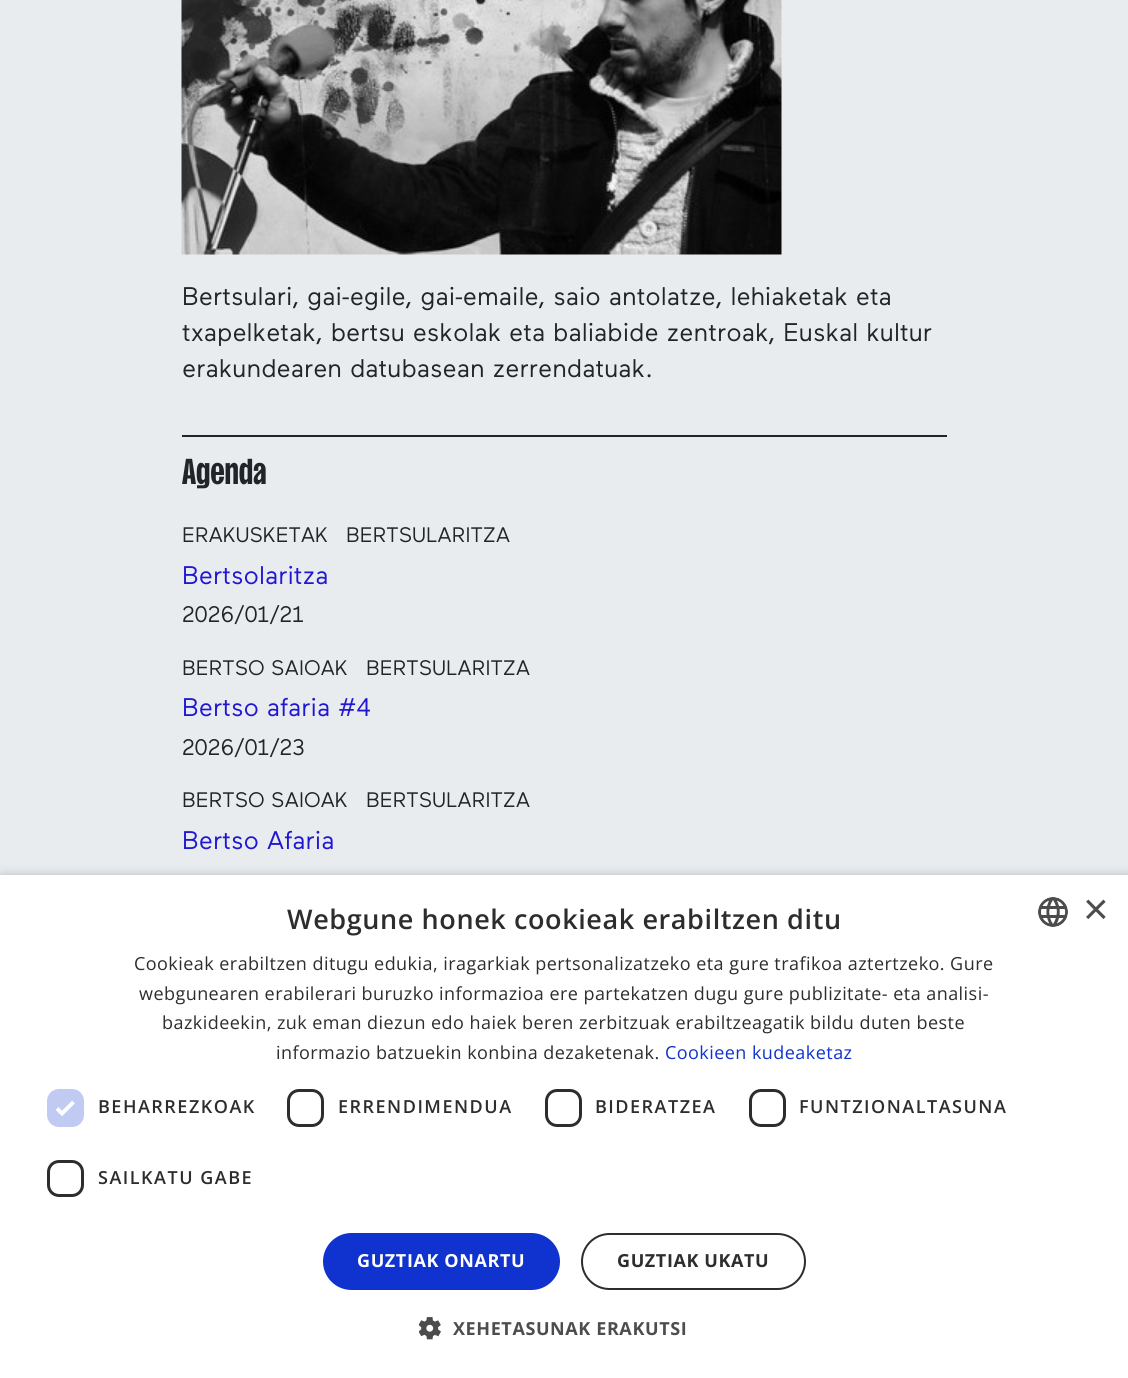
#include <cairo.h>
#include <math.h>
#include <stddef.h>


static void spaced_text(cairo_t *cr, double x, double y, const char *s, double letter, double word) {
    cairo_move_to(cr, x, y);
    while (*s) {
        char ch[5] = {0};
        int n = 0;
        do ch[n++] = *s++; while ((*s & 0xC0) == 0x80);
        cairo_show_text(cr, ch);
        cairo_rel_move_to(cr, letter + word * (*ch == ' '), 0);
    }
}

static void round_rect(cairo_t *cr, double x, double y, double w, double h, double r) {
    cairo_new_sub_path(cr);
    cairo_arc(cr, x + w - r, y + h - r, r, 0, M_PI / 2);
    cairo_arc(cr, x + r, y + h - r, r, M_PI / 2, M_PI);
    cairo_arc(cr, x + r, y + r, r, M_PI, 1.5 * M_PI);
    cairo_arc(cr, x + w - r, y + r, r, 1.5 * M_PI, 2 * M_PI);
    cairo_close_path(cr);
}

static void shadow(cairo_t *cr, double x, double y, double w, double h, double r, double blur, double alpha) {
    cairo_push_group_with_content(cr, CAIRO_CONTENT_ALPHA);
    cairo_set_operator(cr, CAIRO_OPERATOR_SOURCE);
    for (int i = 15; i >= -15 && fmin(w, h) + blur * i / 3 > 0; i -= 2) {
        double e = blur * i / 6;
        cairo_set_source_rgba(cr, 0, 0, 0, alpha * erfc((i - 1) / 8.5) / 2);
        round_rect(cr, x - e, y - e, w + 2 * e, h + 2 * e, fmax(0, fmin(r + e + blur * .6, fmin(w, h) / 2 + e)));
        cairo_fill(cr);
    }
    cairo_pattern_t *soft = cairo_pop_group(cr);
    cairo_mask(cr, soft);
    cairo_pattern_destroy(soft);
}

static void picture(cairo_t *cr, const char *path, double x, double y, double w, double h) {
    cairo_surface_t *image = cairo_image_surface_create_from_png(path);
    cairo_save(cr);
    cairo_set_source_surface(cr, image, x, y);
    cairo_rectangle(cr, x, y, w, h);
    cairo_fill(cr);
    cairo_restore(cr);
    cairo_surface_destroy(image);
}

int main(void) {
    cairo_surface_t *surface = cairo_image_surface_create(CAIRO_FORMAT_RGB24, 1128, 1378);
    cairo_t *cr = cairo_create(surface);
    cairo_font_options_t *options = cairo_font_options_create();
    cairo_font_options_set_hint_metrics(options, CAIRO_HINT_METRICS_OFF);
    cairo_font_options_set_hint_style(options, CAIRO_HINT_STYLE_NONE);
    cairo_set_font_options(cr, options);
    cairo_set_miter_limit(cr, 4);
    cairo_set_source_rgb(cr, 0.914, 0.925, 0.937);
    cairo_paint(cr);
    picture(cr, "img1.png", 181, 0, 601, 255);
    cairo_select_font_face(cr, "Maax", CAIRO_FONT_SLANT_NORMAL, CAIRO_FONT_WEIGHT_NORMAL);
    cairo_set_font_size(cr, 25.5);
    cairo_set_source_rgb(cr, 0.129, 0.145, 0.161);
    cairo_move_to(cr, 182, 305);
    cairo_show_text(cr, "Bertsulari, gai-egile, gai-emaile, saio antolatze, lehiaketak eta");
    cairo_move_to(cr, 182, 341);
    cairo_show_text(cr, "txapelketak, bertsu eskolak eta baliabide zentroak, Euskal kultur");
    cairo_move_to(cr, 182, 377);
    cairo_show_text(cr, "erakundearen datubasean zerrendatuak.");
    cairo_rectangle(cr, 182, 435, 765, 2);
    cairo_fill(cr);
    cairo_select_font_face(cr, "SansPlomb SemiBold", CAIRO_FONT_SLANT_NORMAL, CAIRO_FONT_WEIGHT_NORMAL);
    cairo_set_font_size(cr, 36);
    cairo_move_to(cr, 182, 484);
    cairo_show_text(cr, "Agenda");
    cairo_select_font_face(cr, "Maax", CAIRO_FONT_SLANT_NORMAL, CAIRO_FONT_WEIGHT_NORMAL);
    cairo_set_font_size(cr, 21);
    cairo_move_to(cr, 182, 542);
    cairo_show_text(cr, "ERAKUSKETAK");
    cairo_move_to(cr, 346, 542);
    cairo_show_text(cr, "BERTSULARITZA");
    cairo_set_font_size(cr, 25.5);
    cairo_set_source_rgb(cr, 0.125, 0.09, 0.827);
    cairo_move_to(cr, 182, 584);
    cairo_show_text(cr, "Bertsolaritza");
    cairo_set_font_size(cr, 22.5);
    cairo_set_source_rgb(cr, 0.129, 0.145, 0.161);
    cairo_move_to(cr, 182, 622);
    cairo_show_text(cr, "2026/01/21");
    cairo_set_font_size(cr, 21);
    cairo_move_to(cr, 182, 675);
    cairo_show_text(cr, "BERTSO SAIOAK");
    cairo_move_to(cr, 366, 675);
    cairo_show_text(cr, "BERTSULARITZA");
    cairo_set_font_size(cr, 25.5);
    cairo_set_source_rgb(cr, 0.125, 0.09, 0.827);
    cairo_move_to(cr, 182, 716);
    cairo_show_text(cr, "Bertso afaria #4");
    cairo_set_font_size(cr, 22.5);
    cairo_set_source_rgb(cr, 0.129, 0.145, 0.161);
    cairo_move_to(cr, 182, 755);
    cairo_show_text(cr, "2026/01/23");
    cairo_set_font_size(cr, 21);
    cairo_move_to(cr, 182, 807);
    cairo_show_text(cr, "BERTSO SAIOAK");
    cairo_move_to(cr, 366, 807);
    cairo_show_text(cr, "BERTSULARITZA");
    cairo_set_font_size(cr, 25.5);
    cairo_set_source_rgb(cr, 0.125, 0.09, 0.827);
    cairo_move_to(cr, 182, 849);
    cairo_show_text(cr, "Bertso Afaria");
    cairo_set_source_rgb(cr, 0, 0, 0);
    shadow(cr, 2, 878, 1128, 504, 0, 6, 0.35);
    cairo_set_source_rgb(cr, 1, 1, 1);
    cairo_rectangle(cr, 0, 875, 1128, 503);
    cairo_fill(cr);
    cairo_select_font_face(cr, "Open Sans SemiBold", CAIRO_FONT_SLANT_NORMAL, CAIRO_FONT_WEIGHT_NORMAL);
    cairo_set_font_size(cr, 27);
    cairo_set_source_rgb(cr, 0.176, 0.176, 0.176);
    spaced_text(cr, 287, 929, "Webgune honek cookieak erabiltzen ditu", 0.6, 0);
    picture(cr, "img2.png", 1038, 897, 30, 30);
    cairo_select_font_face(cr, "Liberation Sans", CAIRO_FONT_SLANT_NORMAL, CAIRO_FONT_WEIGHT_NORMAL);
    cairo_set_font_size(cr, 44);
    cairo_set_source_rgb(cr, 0.302, 0.302, 0.302);
    cairo_move_to(cr, 1083, 924);
    cairo_show_text(cr, "×");
    cairo_select_font_face(cr, "Open Sans", CAIRO_FONT_SLANT_NORMAL, CAIRO_FONT_WEIGHT_NORMAL);
    cairo_set_font_size(cr, 18);
    cairo_set_source_rgb(cr, 0.176, 0.176, 0.176);
    spaced_text(cr, 134, 970, "Cookieak erabiltzen ditugu edukia, iragarkiak pertsonalizatzeko eta gure trafikoa aztertzeko. Gure", 0.45, 0);
    spaced_text(cr, 139, 1000, "webgunearen erabilerari buruzko informazioa ere partekatzen dugu gure publizitate- eta analisi-", 0.45, 0);
    spaced_text(cr, 162, 1029, "bazkideekin, zuk eman diezun edo haiek beren zerbitzuak erabiltzeagatik bildu duten beste", 0.45, 0);
    spaced_text(cr, 276, 1059, "informazio batzuekin konbina dezaketenak.", 0.45, 0);
    cairo_set_source_rgb(cr, 0.063, 0.196, 0.812);
    spaced_text(cr, 665, 1059, "Cookieen kudeaketaz", 0.45, 0);
    cairo_set_source_rgb(cr, 0.757, 0.792, 0.953);
    round_rect(cr, 47, 1089, 37, 38, 12);
    cairo_fill(cr);
    cairo_new_path(cr);
    cairo_move_to(cr, 57, 1108.5);
    cairo_line_to(cr, 62, 1113.5);
    cairo_line_to(cr, 73.5, 1102);
    cairo_set_source_rgb(cr, 1, 1, 1);
    cairo_set_line_width(cr, 3.9);
    cairo_stroke(cr);
    cairo_select_font_face(cr, "Open Sans SemiBold", CAIRO_FONT_SLANT_NORMAL, CAIRO_FONT_WEIGHT_NORMAL);
    cairo_set_source_rgb(cr, 0.176, 0.176, 0.176);
    spaced_text(cr, 98, 1113, "BEHARREZKOAK", 1.5, 0);
    round_rect(cr, 288.5, 1090.5, 34, 35, 10.5);
    cairo_set_line_width(cr, 3);
    cairo_stroke(cr);
    spaced_text(cr, 338, 1113, "ERRENDIMENDUA", 1.5, 0);
    round_rect(cr, 546.5, 1090.5, 34, 35, 10.5);
    cairo_stroke(cr);
    spaced_text(cr, 595, 1113, "BIDERATZEA", 1.5, 0);
    round_rect(cr, 750.5, 1090.5, 34, 35, 10.5);
    cairo_stroke(cr);
    spaced_text(cr, 799, 1113, "FUNTZIONALTASUNA", 1.5, 0);
    round_rect(cr, 48.5, 1161.5, 34, 34, 10.5);
    cairo_stroke(cr);
    spaced_text(cr, 98, 1184, "SAILKATU GABE", 1.5, 0);
    cairo_set_source_rgb(cr, 0.063, 0.196, 0.812);
    round_rect(cr, 323, 1233, 237, 57, 28.5);
    cairo_fill(cr);
    cairo_select_font_face(cr, "Open Sans", CAIRO_FONT_SLANT_NORMAL, CAIRO_FONT_WEIGHT_BOLD);
    cairo_set_source_rgb(cr, 1, 1, 1);
    spaced_text(cr, 357, 1267, "GUZTIAK ONARTU", 0.6, 0);
    round_rect(cr, 582, 1234, 223, 55, 27.5);
    cairo_set_source_rgb(cr, 0.176, 0.176, 0.176);
    cairo_set_line_width(cr, 2);
    cairo_stroke(cr);
    spaced_text(cr, 617, 1267, "GUZTIAK UKATU", 0.6, 0);
    picture(cr, "img3.png", 419, 1317, 22, 23);
    cairo_set_source_rgb(cr, 0.302, 0.302, 0.302);
    spaced_text(cr, 453, 1335, "XEHETASUNAK ERAKUTSI", 0.6, 0);
    cairo_surface_write_to_png(surface, "page.png");
    cairo_font_options_destroy(options);
    cairo_destroy(cr);
    cairo_surface_destroy(surface);
    return 0;
}
